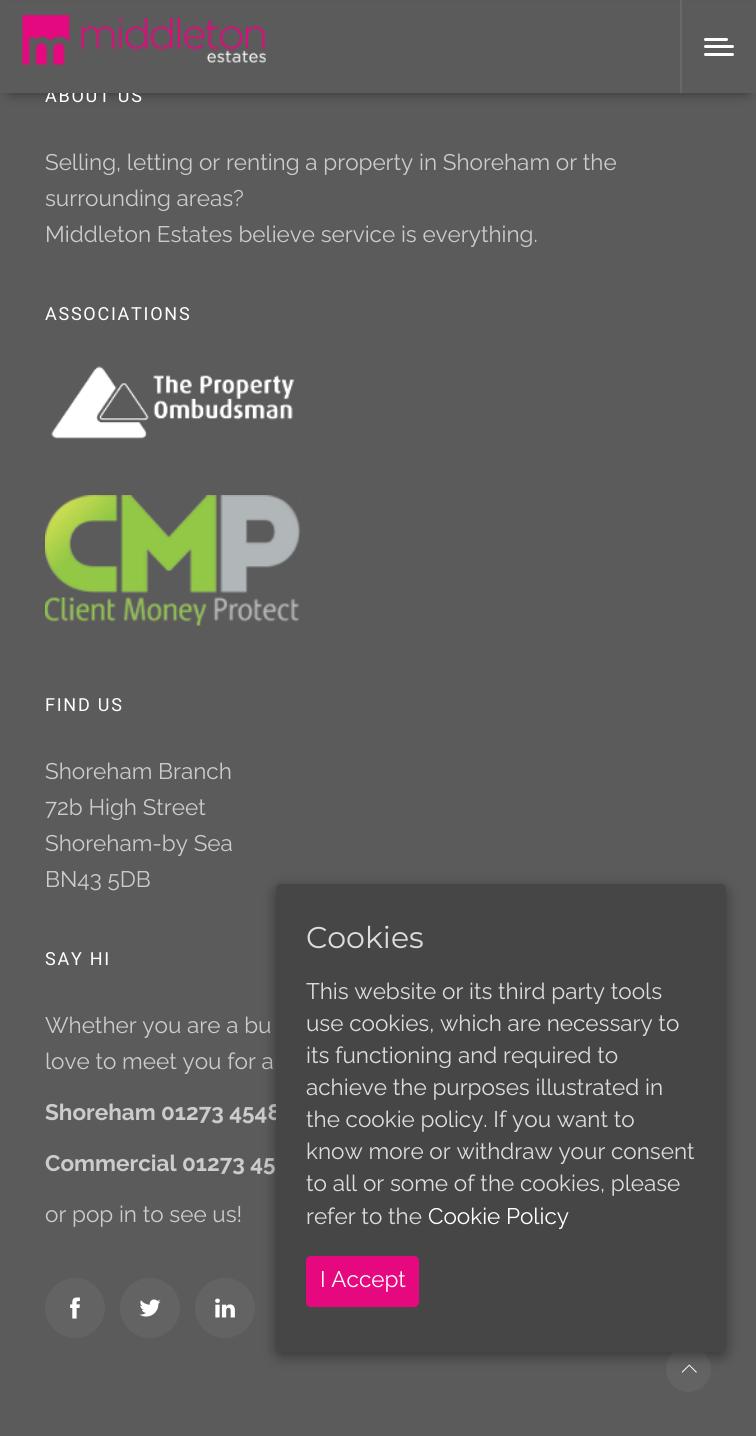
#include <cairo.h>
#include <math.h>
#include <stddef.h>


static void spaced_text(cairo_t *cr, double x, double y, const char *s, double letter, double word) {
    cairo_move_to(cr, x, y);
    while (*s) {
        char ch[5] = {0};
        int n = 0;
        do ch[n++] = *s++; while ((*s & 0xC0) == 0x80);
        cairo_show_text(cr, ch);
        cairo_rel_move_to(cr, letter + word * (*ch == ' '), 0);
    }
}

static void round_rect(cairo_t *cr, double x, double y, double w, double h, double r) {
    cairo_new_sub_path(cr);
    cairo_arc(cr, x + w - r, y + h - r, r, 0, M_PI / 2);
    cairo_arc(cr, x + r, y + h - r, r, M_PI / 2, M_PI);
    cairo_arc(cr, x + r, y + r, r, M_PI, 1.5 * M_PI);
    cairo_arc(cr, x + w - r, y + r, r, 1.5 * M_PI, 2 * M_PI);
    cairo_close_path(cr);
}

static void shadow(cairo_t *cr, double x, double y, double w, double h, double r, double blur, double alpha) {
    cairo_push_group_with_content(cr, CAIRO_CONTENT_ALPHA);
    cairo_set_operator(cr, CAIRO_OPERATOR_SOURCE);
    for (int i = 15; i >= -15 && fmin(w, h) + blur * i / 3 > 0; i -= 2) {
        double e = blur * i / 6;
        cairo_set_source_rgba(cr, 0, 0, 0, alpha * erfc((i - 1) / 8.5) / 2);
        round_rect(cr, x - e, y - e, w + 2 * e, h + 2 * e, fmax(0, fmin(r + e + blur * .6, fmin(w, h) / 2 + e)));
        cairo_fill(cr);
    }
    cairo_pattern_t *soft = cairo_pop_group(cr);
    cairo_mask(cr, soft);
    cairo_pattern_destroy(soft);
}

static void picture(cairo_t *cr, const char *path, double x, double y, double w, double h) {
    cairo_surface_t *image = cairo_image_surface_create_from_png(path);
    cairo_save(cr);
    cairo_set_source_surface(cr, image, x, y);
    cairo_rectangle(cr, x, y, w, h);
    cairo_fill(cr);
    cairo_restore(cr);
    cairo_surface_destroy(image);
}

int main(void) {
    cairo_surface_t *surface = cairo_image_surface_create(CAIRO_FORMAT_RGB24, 756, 1436);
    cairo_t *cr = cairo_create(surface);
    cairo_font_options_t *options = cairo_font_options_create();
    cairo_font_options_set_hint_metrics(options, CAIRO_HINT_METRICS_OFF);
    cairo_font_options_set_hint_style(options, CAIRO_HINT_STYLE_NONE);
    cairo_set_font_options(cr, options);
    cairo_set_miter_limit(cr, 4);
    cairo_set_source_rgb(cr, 0.357, 0.357, 0.357);
    cairo_paint(cr);
    cairo_set_source_rgb(cr, 0, 0, 0);
    shadow(cr, 11, 17, 735, 72, 0, 7.5, 0.8);
    cairo_select_font_face(cr, "Roboto", CAIRO_FONT_SLANT_NORMAL, CAIRO_FONT_WEIGHT_NORMAL);
    cairo_set_font_size(cr, 18);
    cairo_set_source_rgb(cr, 1, 1, 1);
    spaced_text(cr, 45, 102, "ABOUT US", 1.75, 0);
    cairo_set_source_rgb(cr, 0.357, 0.357, 0.357);
    cairo_rectangle(cr, 0, 3, 756, 90);
    cairo_fill(cr);
    picture(cr, "img1.png", 22, 15, 244, 50);
    cairo_set_source_rgb(cr, 0.408, 0.408, 0.408);
    cairo_rectangle(cr, 680, 0, 2, 93);
    cairo_fill(cr);
    cairo_set_source_rgb(cr, 1, 1, 1);
    round_rect(cr, 704, 45, 30, 3, 1.5);
    cairo_fill(cr);
    round_rect(cr, 704, 38, 24, 3, 1.5);
    cairo_fill(cr);
    round_rect(cr, 704, 53, 30, 3, 1.5);
    cairo_fill(cr);
    cairo_select_font_face(cr, "Raleway", CAIRO_FONT_SLANT_NORMAL, CAIRO_FONT_WEIGHT_NORMAL);
    cairo_set_font_size(cr, 22.5);
    cairo_set_source_rgb(cr, 0.8, 0.8, 0.8);
    cairo_move_to(cr, 45, 170);
    cairo_show_text(cr, "Selling, letting or renting a property in Shoreham or the");
    cairo_move_to(cr, 45, 206);
    cairo_show_text(cr, "surrounding areas?");
    cairo_move_to(cr, 45, 242);
    cairo_show_text(cr, "Middleton Estates believe service is everything.");
    cairo_select_font_face(cr, "Roboto", CAIRO_FONT_SLANT_NORMAL, CAIRO_FONT_WEIGHT_NORMAL);
    cairo_set_font_size(cr, 18);
    cairo_set_source_rgb(cr, 1, 1, 1);
    spaced_text(cr, 45, 320, "ASSOCIATIONS", 1.75, 0);
    picture(cr, "img2.png", 51, 366, 244, 73);
    picture(cr, "img3.png", 45, 495, 255, 131);
    spaced_text(cr, 45, 711, "FIND US", 1.75, 0);
    cairo_select_font_face(cr, "Raleway", CAIRO_FONT_SLANT_NORMAL, CAIRO_FONT_WEIGHT_NORMAL);
    cairo_set_font_size(cr, 22.5);
    cairo_set_source_rgb(cr, 0.8, 0.8, 0.8);
    cairo_move_to(cr, 45, 779);
    cairo_show_text(cr, "Shoreham Branch");
    cairo_move_to(cr, 45, 815);
    cairo_show_text(cr, "72b High Street");
    cairo_move_to(cr, 45, 851);
    cairo_show_text(cr, "Shoreham-by Sea");
    cairo_move_to(cr, 45, 887);
    cairo_show_text(cr, "BN43 5DB");
    cairo_select_font_face(cr, "Roboto", CAIRO_FONT_SLANT_NORMAL, CAIRO_FONT_WEIGHT_NORMAL);
    cairo_set_font_size(cr, 18);
    cairo_set_source_rgb(cr, 1, 1, 1);
    spaced_text(cr, 45, 965, "SAY HI", 1.75, 0);
    cairo_select_font_face(cr, "Raleway", CAIRO_FONT_SLANT_NORMAL, CAIRO_FONT_WEIGHT_NORMAL);
    cairo_set_font_size(cr, 22.5);
    cairo_set_source_rgb(cr, 0.8, 0.8, 0.8);
    cairo_move_to(cr, 45, 1033);
    cairo_show_text(cr, "Whether you are a bu");
    cairo_move_to(cr, 45, 1069);
    cairo_show_text(cr, "love to meet you for a");
    cairo_select_font_face(cr, "Raleway", CAIRO_FONT_SLANT_NORMAL, CAIRO_FONT_WEIGHT_BOLD);
    cairo_move_to(cr, 45, 1120);
    cairo_show_text(cr, "Shoreham 01273 4548");
    cairo_move_to(cr, 45, 1171);
    cairo_show_text(cr, "Commercial 01273 45");
    cairo_select_font_face(cr, "Raleway", CAIRO_FONT_SLANT_NORMAL, CAIRO_FONT_WEIGHT_NORMAL);
    cairo_move_to(cr, 45, 1222);
    cairo_show_text(cr, "or pop in to see us!");
    cairo_set_source_rgb(cr, 0.388, 0.388, 0.388);
    cairo_new_path(cr);
    cairo_arc(cr, 75, 1308, 30, 0, 2 * M_PI);
    cairo_fill(cr);
    picture(cr, "img4.png", 70, 1297, 10, 22);
    cairo_arc(cr, 150, 1308, 30, 0, 2 * M_PI);
    cairo_fill(cr);
    picture(cr, "img5.png", 139, 1299, 22, 18);
    cairo_arc(cr, 225, 1308, 30, 0, 2 * M_PI);
    cairo_fill(cr);
    picture(cr, "img6.png", 215, 1298, 20, 20);
    cairo_arc(cr, 688.5, 1369.5, 22.5, 0, 2 * M_PI);
    cairo_fill(cr);
    picture(cr, "img7.png", 681, 1364, 16, 9);
    cairo_set_source_rgb(cr, 0, 0, 0);
    shadow(cr, 276, 888, 450, 468, 5, 7, 0.4);
    cairo_set_source_rgb(cr, 0.275, 0.275, 0.275);
    round_rect(cr, 276, 884, 450, 468, 5);
    cairo_fill(cr);
    cairo_select_font_face(cr, "Montserrat", CAIRO_FONT_SLANT_NORMAL, CAIRO_FONT_WEIGHT_NORMAL);
    cairo_set_font_size(cr, 30);
    cairo_set_source_rgb(cr, 0.867, 0.867, 0.867);
    cairo_move_to(cr, 306, 948);
    cairo_show_text(cr, "Cookies");
    cairo_select_font_face(cr, "Raleway", CAIRO_FONT_SLANT_NORMAL, CAIRO_FONT_WEIGHT_NORMAL);
    cairo_set_font_size(cr, 22.5);
    cairo_move_to(cr, 306, 999);
    cairo_show_text(cr, "This website or its third party tools");
    cairo_move_to(cr, 306, 1031);
    cairo_show_text(cr, "use cookies, which are necessary to");
    cairo_move_to(cr, 306, 1063);
    cairo_show_text(cr, "its functioning and required to");
    cairo_move_to(cr, 306, 1095);
    cairo_show_text(cr, "achieve the purposes illustrated in");
    cairo_move_to(cr, 306, 1127);
    cairo_show_text(cr, "the cookie policy. If you want to");
    cairo_move_to(cr, 306, 1159);
    cairo_show_text(cr, "know more or withdraw your consent");
    cairo_move_to(cr, 306, 1191);
    cairo_show_text(cr, "to all or some of the cookies, please");
    cairo_move_to(cr, 306, 1224);
    cairo_show_text(cr, "refer to the");
    cairo_set_source_rgb(cr, 1, 1, 1);
    cairo_move_to(cr, 428, 1224);
    cairo_show_text(cr, "Cookie Policy");
    cairo_set_source_rgb(cr, 0.898, 0.035, 0.498);
    round_rect(cr, 306, 1256, 113, 51, 5);
    cairo_fill(cr);
    cairo_set_source_rgb(cr, 1, 1, 1);
    cairo_move_to(cr, 320, 1287);
    cairo_show_text(cr, "I Accept");
    cairo_surface_write_to_png(surface, "page.png");
    cairo_font_options_destroy(options);
    cairo_destroy(cr);
    cairo_surface_destroy(surface);
    return 0;
}
